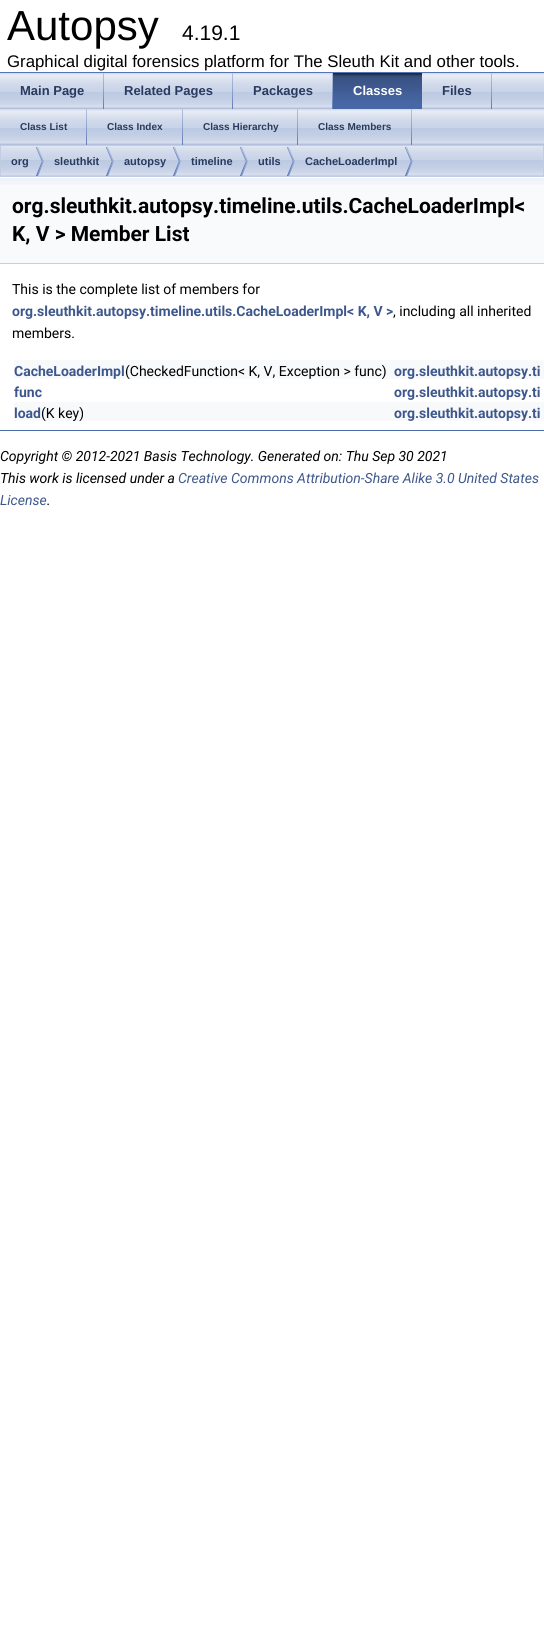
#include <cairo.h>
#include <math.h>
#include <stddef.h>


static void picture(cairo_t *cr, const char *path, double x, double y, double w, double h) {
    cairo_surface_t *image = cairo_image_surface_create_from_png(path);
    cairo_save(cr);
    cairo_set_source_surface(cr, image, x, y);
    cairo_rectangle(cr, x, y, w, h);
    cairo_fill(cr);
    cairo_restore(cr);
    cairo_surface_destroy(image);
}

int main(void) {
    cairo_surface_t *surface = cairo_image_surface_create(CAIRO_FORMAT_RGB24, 544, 1630);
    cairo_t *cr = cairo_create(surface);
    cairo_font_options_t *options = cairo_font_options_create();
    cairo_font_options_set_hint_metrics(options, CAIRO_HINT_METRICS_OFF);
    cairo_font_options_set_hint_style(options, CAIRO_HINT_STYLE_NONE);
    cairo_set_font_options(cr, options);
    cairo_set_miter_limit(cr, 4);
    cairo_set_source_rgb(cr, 1, 1, 1);
    cairo_paint(cr);
    cairo_set_source_rgb(cr, 0.325, 0.451, 0.706);
    cairo_rectangle(cr, 0, 72, 544, 1);
    cairo_fill(cr);
    cairo_select_font_face(cr, "Liberation Sans", CAIRO_FONT_SLANT_NORMAL, CAIRO_FONT_WEIGHT_NORMAL);
    cairo_set_font_size(cr, 42);
    cairo_set_source_rgb(cr, 0, 0, 0);
    cairo_move_to(cr, 7, 40);
    cairo_show_text(cr, "Autopsy");
    cairo_set_font_size(cr, 21);
    cairo_move_to(cr, 182, 40);
    cairo_show_text(cr, "4.19.1");
    cairo_set_font_size(cr, 16.8);
    cairo_move_to(cr, 7, 67);
    cairo_show_text(cr, "Graphical digital forensics platform for The Sleuth Kit and other tools.");
    picture(cr, "img1.png", 0, 73, 544, 36);
    picture(cr, "img2.png", 103, 73, 1, 36);
    cairo_select_font_face(cr, "Liberation Sans", CAIRO_FONT_SLANT_NORMAL, CAIRO_FONT_WEIGHT_BOLD);
    cairo_set_font_size(cr, 13);
    cairo_set_source_rgb(cr, 0.157, 0.227, 0.365);
    cairo_move_to(cr, 20, 95);
    cairo_show_text(cr, "Main Page");
    picture(cr, "img2.png", 232, 73, 1, 36);
    cairo_move_to(cr, 124, 95);
    cairo_show_text(cr, "Related Pages");
    picture(cr, "img2.png", 332, 73, 1, 36);
    cairo_move_to(cr, 253, 95);
    cairo_show_text(cr, "Packages");
    picture(cr, "img3.png", 333, 73, 89, 36);
    cairo_set_source_rgb(cr, 1, 1, 1);
    cairo_move_to(cr, 353, 95);
    cairo_show_text(cr, "Classes");
    picture(cr, "img2.png", 491, 73, 1, 36);
    cairo_set_source_rgb(cr, 0.157, 0.227, 0.365);
    cairo_move_to(cr, 442, 95);
    cairo_show_text(cr, "Files");
    picture(cr, "img1.png", 0, 109, 544, 36);
    picture(cr, "img2.png", 86, 109, 1, 36);
    cairo_set_font_size(cr, 10);
    cairo_move_to(cr, 20, 130);
    cairo_show_text(cr, "Class List");
    picture(cr, "img2.png", 182, 109, 1, 36);
    cairo_move_to(cr, 107, 130);
    cairo_show_text(cr, "Class Index");
    picture(cr, "img2.png", 297, 109, 1, 36);
    cairo_move_to(cr, 203, 130);
    cairo_show_text(cr, "Class Hierarchy");
    picture(cr, "img2.png", 411, 109, 1, 36);
    cairo_move_to(cr, 318, 130);
    cairo_show_text(cr, "Class Members");
    picture(cr, "img4.png", 1, 146, 542, 30);
    cairo_rectangle(cr, 0.5, 145.5, 543, 31);
    cairo_set_source_rgb(cr, 0.761, 0.804, 0.894);
    cairo_set_line_width(cr, 1);
    cairo_stroke(cr);
    picture(cr, "img5.png", 36, 147, 8, 29);
    cairo_set_font_size(cr, 11);
    cairo_set_source_rgb(cr, 0.157, 0.227, 0.365);
    cairo_move_to(cr, 11, 165);
    cairo_show_text(cr, "org");
    picture(cr, "img5.png", 106, 147, 8, 29);
    cairo_move_to(cr, 54, 165);
    cairo_show_text(cr, "sleuthkit");
    picture(cr, "img5.png", 173, 147, 8, 29);
    cairo_move_to(cr, 124, 165);
    cairo_show_text(cr, "autopsy");
    picture(cr, "img5.png", 240, 147, 8, 29);
    cairo_move_to(cr, 191, 165);
    cairo_show_text(cr, "timeline");
    picture(cr, "img5.png", 287, 147, 8, 29);
    cairo_move_to(cr, 258, 165);
    cairo_show_text(cr, "utils");
    picture(cr, "img5.png", 405, 147, 8, 29);
    cairo_move_to(cr, 305, 165);
    cairo_show_text(cr, "CacheLoaderImpl");
    cairo_set_source_rgb(cr, 0.976, 0.98, 0.988);
    cairo_rectangle(cr, 0, 185, 544, 78);
    cairo_fill(cr);
    picture(cr, "img6.png", 0, 177, 544, 8);
    cairo_set_source_rgb(cr, 0.769, 0.812, 0.898);
    cairo_rectangle(cr, 0, 263, 544, 1);
    cairo_fill(cr);
    cairo_select_font_face(cr, "Roboto", CAIRO_FONT_SLANT_NORMAL, CAIRO_FONT_WEIGHT_BOLD);
    cairo_set_font_size(cr, 21);
    cairo_set_source_rgb(cr, 0, 0, 0);
    cairo_move_to(cr, 12, 213);
    cairo_show_text(cr, "org.sleuthkit.autopsy.timeline.utils.CacheLoaderImpl<");
    cairo_move_to(cr, 12, 241);
    cairo_show_text(cr, "K, V > Member List");
    cairo_select_font_face(cr, "Roboto", CAIRO_FONT_SLANT_NORMAL, CAIRO_FONT_WEIGHT_NORMAL);
    cairo_set_font_size(cr, 14);
    cairo_move_to(cr, 12, 294);
    cairo_show_text(cr, "This is the complete list of members for");
    cairo_select_font_face(cr, "Roboto", CAIRO_FONT_SLANT_NORMAL, CAIRO_FONT_WEIGHT_BOLD);
    cairo_set_source_rgb(cr, 0.239, 0.341, 0.549);
    cairo_move_to(cr, 12, 316);
    cairo_show_text(cr, "org.sleuthkit.autopsy.timeline.utils.CacheLoaderImpl< K, V >");
    cairo_select_font_face(cr, "Roboto", CAIRO_FONT_SLANT_NORMAL, CAIRO_FONT_WEIGHT_NORMAL);
    cairo_set_source_rgb(cr, 0, 0, 0);
    cairo_move_to(cr, 393, 316);
    cairo_show_text(cr, ", including all inherited");
    cairo_move_to(cr, 12, 338);
    cairo_show_text(cr, "members.");
    cairo_set_source_rgb(cr, 0.969, 0.973, 0.984);
    cairo_rectangle(cr, 14, 360, 530, 19);
    cairo_fill(cr);
    cairo_select_font_face(cr, "Roboto", CAIRO_FONT_SLANT_NORMAL, CAIRO_FONT_WEIGHT_BOLD);
    cairo_set_source_rgb(cr, 0.239, 0.341, 0.549);
    cairo_move_to(cr, 14, 376);
    cairo_show_text(cr, "CacheLoaderImpl");
    cairo_select_font_face(cr, "Roboto", CAIRO_FONT_SLANT_NORMAL, CAIRO_FONT_WEIGHT_NORMAL);
    cairo_set_source_rgb(cr, 0, 0, 0);
    cairo_move_to(cr, 125, 376);
    cairo_show_text(cr, "(CheckedFunction< K, V, Exception > func)");
    cairo_select_font_face(cr, "Roboto", CAIRO_FONT_SLANT_NORMAL, CAIRO_FONT_WEIGHT_BOLD);
    cairo_set_source_rgb(cr, 0.239, 0.341, 0.549);
    cairo_move_to(cr, 394, 376);
    cairo_show_text(cr, "org.sleuthkit.autopsy.ti");
    cairo_move_to(cr, 14, 397);
    cairo_show_text(cr, "func");
    cairo_move_to(cr, 394, 397);
    cairo_show_text(cr, "org.sleuthkit.autopsy.ti");
    cairo_set_source_rgb(cr, 0.969, 0.973, 0.984);
    cairo_rectangle(cr, 14, 402, 530, 19);
    cairo_fill(cr);
    cairo_set_source_rgb(cr, 0.239, 0.341, 0.549);
    cairo_move_to(cr, 14, 418);
    cairo_show_text(cr, "load");
    cairo_select_font_face(cr, "Roboto", CAIRO_FONT_SLANT_NORMAL, CAIRO_FONT_WEIGHT_NORMAL);
    cairo_set_source_rgb(cr, 0, 0, 0);
    cairo_move_to(cr, 41, 418);
    cairo_show_text(cr, "(K key)");
    cairo_select_font_face(cr, "Roboto", CAIRO_FONT_SLANT_NORMAL, CAIRO_FONT_WEIGHT_BOLD);
    cairo_set_source_rgb(cr, 0.239, 0.341, 0.549);
    cairo_move_to(cr, 394, 418);
    cairo_show_text(cr, "org.sleuthkit.autopsy.ti");
    cairo_set_source_rgb(cr, 0.29, 0.416, 0.667);
    cairo_rectangle(cr, 0, 430, 544, 1);
    cairo_fill(cr);
    cairo_select_font_face(cr, "Roboto", CAIRO_FONT_SLANT_ITALIC, CAIRO_FONT_WEIGHT_NORMAL);
    cairo_set_source_rgb(cr, 0, 0, 0);
    cairo_move_to(cr, 0, 461);
    cairo_show_text(cr, "Copyright © 2012-2021 Basis Technology. Generated on: Thu Sep 30 2021");
    cairo_move_to(cr, 0, 483);
    cairo_show_text(cr, "This work is licensed under a");
    cairo_set_source_rgb(cr, 0.239, 0.341, 0.549);
    cairo_move_to(cr, 178, 483);
    cairo_show_text(cr, "Creative Commons Attribution-Share Alike 3.0 United States");
    cairo_move_to(cr, 0, 505);
    cairo_show_text(cr, "License");
    cairo_set_source_rgb(cr, 0, 0, 0);
    cairo_move_to(cr, 47, 505);
    cairo_show_text(cr, ".");
    cairo_surface_write_to_png(surface, "page.png");
    cairo_font_options_destroy(options);
    cairo_destroy(cr);
    cairo_surface_destroy(surface);
    return 0;
}
